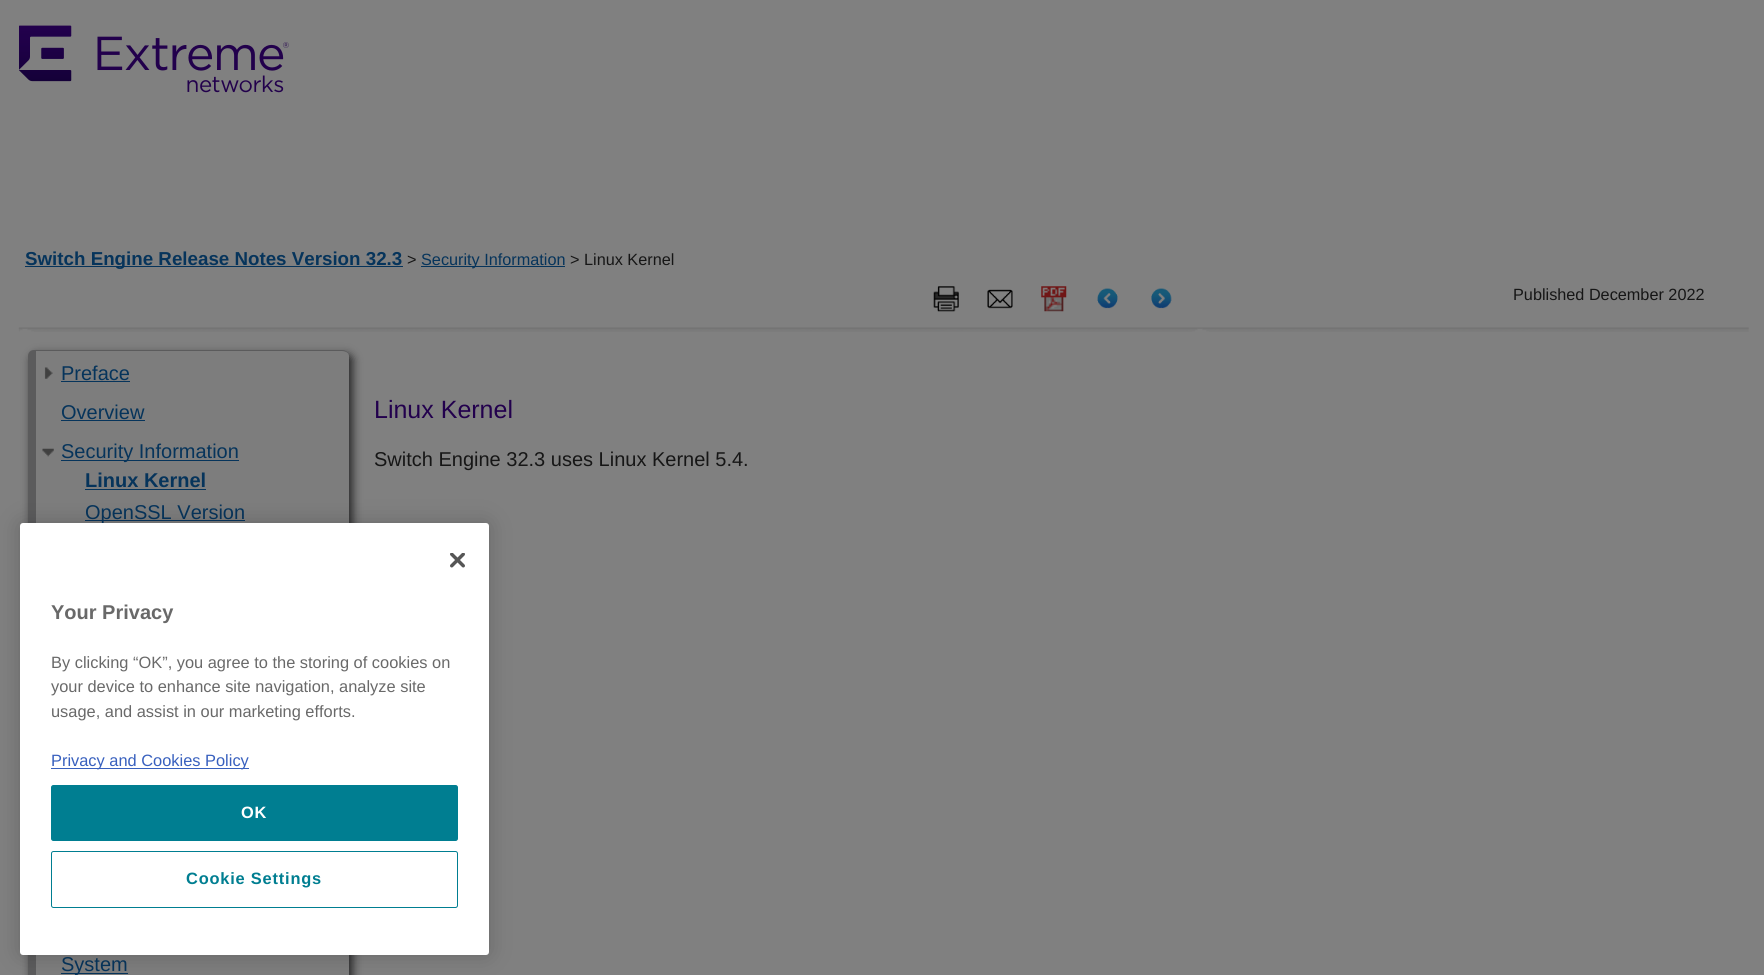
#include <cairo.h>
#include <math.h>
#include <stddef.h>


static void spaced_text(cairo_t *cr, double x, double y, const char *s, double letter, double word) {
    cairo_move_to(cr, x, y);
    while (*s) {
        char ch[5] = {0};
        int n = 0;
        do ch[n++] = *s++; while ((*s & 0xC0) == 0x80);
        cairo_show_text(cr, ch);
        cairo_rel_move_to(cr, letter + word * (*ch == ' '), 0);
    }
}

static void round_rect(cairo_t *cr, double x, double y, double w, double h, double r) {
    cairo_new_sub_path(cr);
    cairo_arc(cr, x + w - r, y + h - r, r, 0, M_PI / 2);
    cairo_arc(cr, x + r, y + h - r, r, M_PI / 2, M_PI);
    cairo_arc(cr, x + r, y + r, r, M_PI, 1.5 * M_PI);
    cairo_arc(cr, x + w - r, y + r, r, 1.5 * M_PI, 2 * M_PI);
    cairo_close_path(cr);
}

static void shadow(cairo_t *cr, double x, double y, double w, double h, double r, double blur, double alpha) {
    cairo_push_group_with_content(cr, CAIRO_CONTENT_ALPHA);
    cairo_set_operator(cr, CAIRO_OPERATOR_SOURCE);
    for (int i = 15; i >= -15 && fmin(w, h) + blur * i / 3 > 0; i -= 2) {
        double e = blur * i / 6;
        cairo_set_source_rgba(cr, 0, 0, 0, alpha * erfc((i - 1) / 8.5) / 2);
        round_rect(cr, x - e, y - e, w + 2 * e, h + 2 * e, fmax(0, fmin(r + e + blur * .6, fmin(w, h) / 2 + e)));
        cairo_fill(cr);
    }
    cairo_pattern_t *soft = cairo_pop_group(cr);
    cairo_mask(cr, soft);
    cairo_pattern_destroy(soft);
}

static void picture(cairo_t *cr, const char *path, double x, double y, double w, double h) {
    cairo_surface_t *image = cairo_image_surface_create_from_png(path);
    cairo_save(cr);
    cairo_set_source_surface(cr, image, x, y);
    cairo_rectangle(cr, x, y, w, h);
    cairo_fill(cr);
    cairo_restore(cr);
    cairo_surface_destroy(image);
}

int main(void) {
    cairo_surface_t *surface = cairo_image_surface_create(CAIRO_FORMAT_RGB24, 1764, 975);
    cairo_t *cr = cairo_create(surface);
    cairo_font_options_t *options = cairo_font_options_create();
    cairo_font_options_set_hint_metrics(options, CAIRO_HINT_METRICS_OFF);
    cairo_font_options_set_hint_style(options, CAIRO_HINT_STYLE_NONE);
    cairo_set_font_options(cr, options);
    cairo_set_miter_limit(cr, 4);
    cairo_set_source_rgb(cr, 0.502, 0.502, 0.502);
    cairo_paint(cr);
    picture(cr, "img1.png", 19, 25, 270, 68);
    picture(cr, "img2.png", 18, 327, 1731, 5);
    cairo_set_source_rgb(cr, 0.024, 0.204, 0.357);
    cairo_rectangle(cr, 25, 266, 378, 1);
    cairo_fill(cr);
    cairo_select_font_face(cr, "Liberation Sans", CAIRO_FONT_SLANT_NORMAL, CAIRO_FONT_WEIGHT_BOLD);
    cairo_set_font_size(cr, 18.75);
    cairo_move_to(cr, 25, 265);
    cairo_show_text(cr, "Switch Engine Release Notes Version 32.3");
    cairo_select_font_face(cr, "Liberation Sans", CAIRO_FONT_SLANT_NORMAL, CAIRO_FONT_WEIGHT_NORMAL);
    cairo_set_font_size(cr, 16.25);
    cairo_set_source_rgb(cr, 0.086, 0.086, 0.086);
    cairo_move_to(cr, 407, 265);
    cairo_show_text(cr, ">");
    cairo_set_source_rgb(cr, 0.024, 0.204, 0.357);
    cairo_rectangle(cr, 421, 266, 144, 1);
    cairo_fill(cr);
    cairo_move_to(cr, 421, 265);
    cairo_show_text(cr, "Security Information");
    cairo_set_source_rgb(cr, 0.086, 0.086, 0.086);
    cairo_move_to(cr, 570, 265);
    cairo_show_text(cr, "> Linux Kernel");
    picture(cr, "img3.png", 933, 286, 26, 26);
    picture(cr, "img4.png", 987, 289, 26, 20);
    picture(cr, "img5.png", 1041, 286, 26, 26);
    picture(cr, "img6.png", 1097, 288, 21, 21);
    picture(cr, "img7.png", 1151, 288, 21, 21);
    cairo_move_to(cr, 1513, 300);
    cairo_show_text(cr, "Published December 2022");
    cairo_set_source_rgb(cr, 0.165, 0.165, 0.169);
    shadow(cr, 31, 354, 322, 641, 6, 4.5, 1);
    cairo_set_source_rgb(cr, 0.49, 0.49, 0.49);
    cairo_new_path(cr);
    cairo_move_to(cr, 36, 351);
    cairo_line_to(cr, 342, 351);
    cairo_curve_to(cr, 346, 351, 349, 353, 349, 356);
    cairo_line_to(cr, 349, 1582);
    cairo_curve_to(cr, 349, 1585, 346, 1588, 342, 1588);
    cairo_line_to(cr, 36, 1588);
    cairo_close_path(cr);
    cairo_fill(cr);
    cairo_set_source_rgb(cr, 0.357, 0.357, 0.361);
    cairo_set_fill_rule(cr, CAIRO_FILL_RULE_EVEN_ODD);
    cairo_new_path(cr);
    cairo_move_to(cr, 34, 350);
    cairo_line_to(cr, 342, 350);
    cairo_curve_to(cr, 346, 350, 349, 353, 349, 356);
    cairo_line_to(cr, 349, 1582);
    cairo_curve_to(cr, 349, 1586, 346, 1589, 342, 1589);
    cairo_line_to(cr, 34, 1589);
    cairo_curve_to(cr, 30, 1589, 28, 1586, 28, 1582);
    cairo_line_to(cr, 28, 356);
    cairo_curve_to(cr, 28, 353, 30, 350, 34, 350);
    cairo_close_path(cr);
    cairo_move_to(cr, 36, 351);
    cairo_line_to(cr, 342, 351);
    cairo_curve_to(cr, 346, 351, 349, 353, 349, 356);
    cairo_line_to(cr, 349, 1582);
    cairo_curve_to(cr, 349, 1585, 346, 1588, 342, 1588);
    cairo_line_to(cr, 36, 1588);
    cairo_close_path(cr);
    cairo_fill(cr);
    picture(cr, "img8.png", 44, 367, 9, 12);
    cairo_set_font_size(cr, 20);
    cairo_set_source_rgb(cr, 0.024, 0.204, 0.357);
    cairo_move_to(cr, 61, 380);
    cairo_show_text(cr, "Preface");
    cairo_rectangle(cr, 61, 381, 69, 1);
    cairo_fill(cr);
    cairo_move_to(cr, 61, 419);
    cairo_show_text(cr, "Overview");
    cairo_rectangle(cr, 61, 420, 84, 1);
    cairo_fill(cr);
    picture(cr, "img9.png", 42, 448, 12, 9);
    cairo_rectangle(cr, 61, 460, 178, 1);
    cairo_fill(cr);
    cairo_move_to(cr, 61, 458);
    cairo_show_text(cr, "Security Information");
    cairo_select_font_face(cr, "Liberation Sans", CAIRO_FONT_SLANT_NORMAL, CAIRO_FONT_WEIGHT_BOLD);
    cairo_move_to(cr, 85, 487);
    cairo_show_text(cr, "Linux Kernel");
    cairo_rectangle(cr, 85, 489, 121, 1);
    cairo_fill(cr);
    cairo_rectangle(cr, 85, 520, 160, 1);
    cairo_fill(cr);
    cairo_select_font_face(cr, "Liberation Sans", CAIRO_FONT_SLANT_NORMAL, CAIRO_FONT_WEIGHT_NORMAL);
    cairo_move_to(cr, 85, 519);
    cairo_show_text(cr, "OpenSSL Version");
    cairo_rectangle(cr, 61, 973, 67, 1);
    cairo_fill(cr);
    cairo_move_to(cr, 61, 971);
    cairo_show_text(cr, "System");
    cairo_set_font_size(cr, 25);
    cairo_set_source_rgb(cr, 0.133, 0, 0.302);
    cairo_move_to(cr, 374, 418);
    cairo_show_text(cr, "Linux Kernel");
    cairo_set_font_size(cr, 20);
    cairo_set_source_rgb(cr, 0.086, 0.086, 0.086);
    cairo_move_to(cr, 374, 466);
    cairo_show_text(cr, "Switch Engine 32.3 uses Linux Kernel 5.4.");
    cairo_set_source_rgb(cr, 0, 0, 0);
    shadow(cr, 20, 523, 469, 432, 3, 11, 0.2);
    cairo_set_source_rgb(cr, 1, 1, 1);
    round_rect(cr, 20, 523, 469, 432, 3);
    cairo_fill(cr);
    picture(cr, "img10.png", 450, 553, 15, 15);
    cairo_select_font_face(cr, "Liberation Sans", CAIRO_FONT_SLANT_NORMAL, CAIRO_FONT_WEIGHT_BOLD);
    cairo_set_source_rgb(cr, 0.412, 0.412, 0.412);
    cairo_move_to(cr, 51, 619);
    cairo_show_text(cr, "Your Privacy");
    cairo_select_font_face(cr, "Liberation Sans", CAIRO_FONT_SLANT_NORMAL, CAIRO_FONT_WEIGHT_NORMAL);
    cairo_set_font_size(cr, 16.4);
    cairo_move_to(cr, 51, 668);
    cairo_show_text(cr, "By clicking “OK”, you agree to the storing of cookies on");
    cairo_move_to(cr, 51, 692);
    cairo_show_text(cr, "your device to enhance site navigation, analyze site");
    cairo_move_to(cr, 51, 717);
    cairo_show_text(cr, "usage, and assist in our marketing efforts.");
    cairo_set_source_rgb(cr, 0.22, 0.376, 0.745);
    cairo_rectangle(cr, 51, 768, 198, 1);
    cairo_fill(cr);
    cairo_move_to(cr, 51, 766);
    cairo_show_text(cr, "Privacy and Cookies Policy");
    cairo_set_source_rgb(cr, 0, 0.494, 0.569);
    round_rect(cr, 51.5, 785.5, 406, 55, 2);
    cairo_fill_preserve(cr);
    cairo_set_line_width(cr, 1);
    cairo_stroke(cr);
    cairo_select_font_face(cr, "Liberation Sans", CAIRO_FONT_SLANT_NORMAL, CAIRO_FONT_WEIGHT_BOLD);
    cairo_set_source_rgb(cr, 1, 1, 1);
    spaced_text(cr, 241, 818, "OK", 0.8, 0);
    round_rect(cr, 51.5, 851.5, 406, 56, 2);
    cairo_set_source_rgb(cr, 0, 0.494, 0.569);
    cairo_stroke(cr);
    spaced_text(cr, 186, 884, "Cookie Settings", 0.8, 0);
    cairo_surface_write_to_png(surface, "page.png");
    cairo_font_options_destroy(options);
    cairo_destroy(cr);
    cairo_surface_destroy(surface);
    return 0;
}
